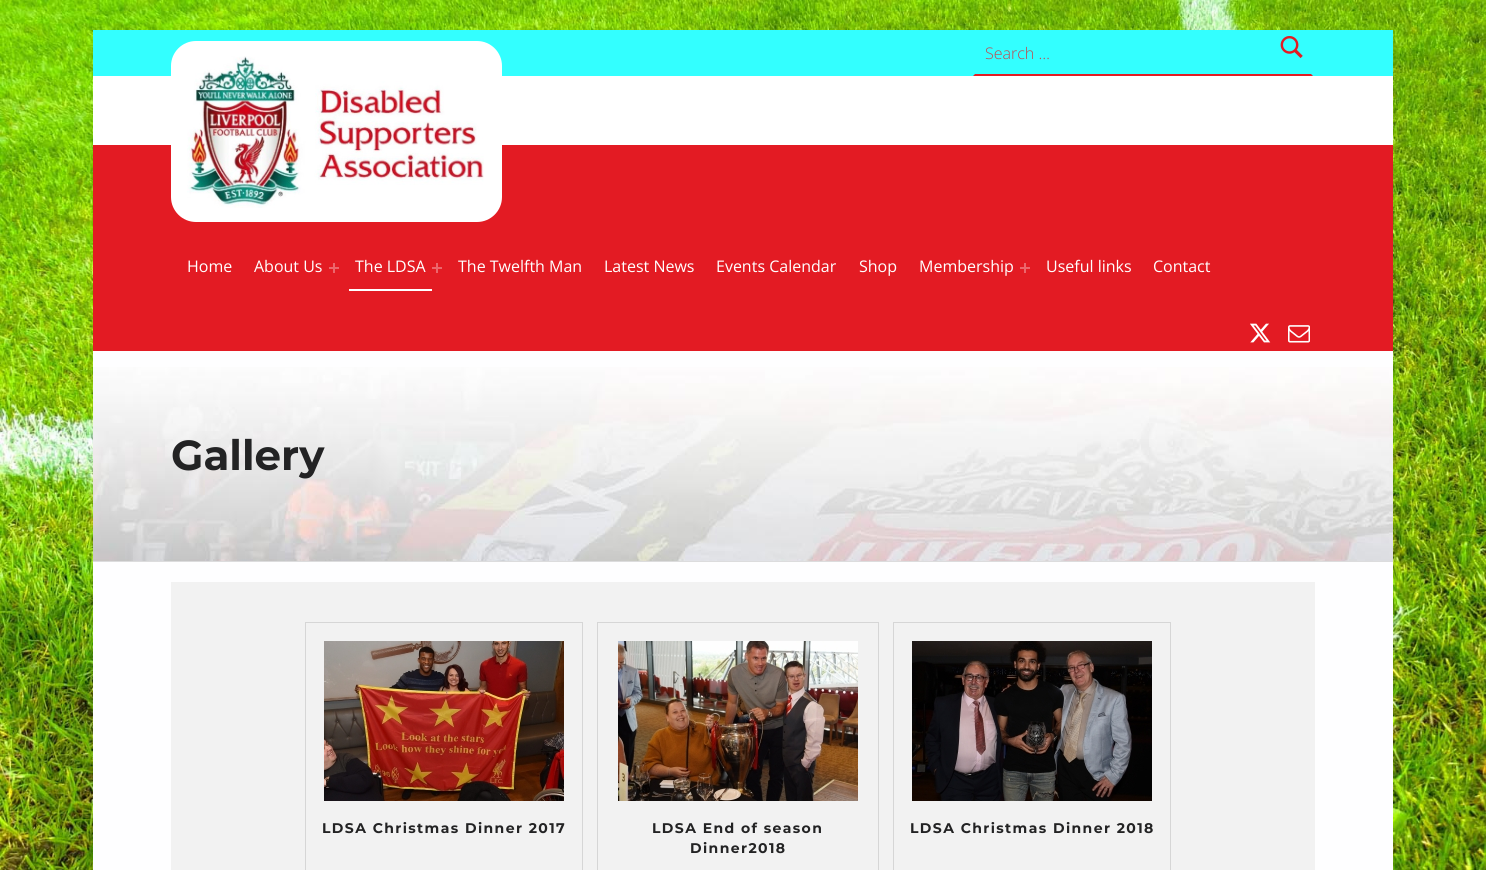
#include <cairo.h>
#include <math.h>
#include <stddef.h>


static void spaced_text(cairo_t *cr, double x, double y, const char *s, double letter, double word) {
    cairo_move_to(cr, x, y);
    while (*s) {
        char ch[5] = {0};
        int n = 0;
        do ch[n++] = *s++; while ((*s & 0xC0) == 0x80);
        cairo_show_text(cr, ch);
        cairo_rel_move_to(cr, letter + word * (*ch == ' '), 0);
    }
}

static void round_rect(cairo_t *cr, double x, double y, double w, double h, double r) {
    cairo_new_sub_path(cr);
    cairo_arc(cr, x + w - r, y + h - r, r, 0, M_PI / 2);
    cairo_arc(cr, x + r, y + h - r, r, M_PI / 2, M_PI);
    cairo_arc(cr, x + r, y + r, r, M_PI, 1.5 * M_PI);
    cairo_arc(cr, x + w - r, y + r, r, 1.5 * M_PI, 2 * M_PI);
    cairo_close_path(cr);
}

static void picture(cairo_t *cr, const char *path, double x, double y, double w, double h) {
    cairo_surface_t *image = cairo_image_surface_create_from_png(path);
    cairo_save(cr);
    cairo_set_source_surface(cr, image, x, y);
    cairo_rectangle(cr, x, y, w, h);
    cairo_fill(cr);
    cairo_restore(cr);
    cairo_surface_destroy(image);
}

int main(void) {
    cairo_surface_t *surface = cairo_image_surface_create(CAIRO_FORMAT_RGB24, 1486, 870);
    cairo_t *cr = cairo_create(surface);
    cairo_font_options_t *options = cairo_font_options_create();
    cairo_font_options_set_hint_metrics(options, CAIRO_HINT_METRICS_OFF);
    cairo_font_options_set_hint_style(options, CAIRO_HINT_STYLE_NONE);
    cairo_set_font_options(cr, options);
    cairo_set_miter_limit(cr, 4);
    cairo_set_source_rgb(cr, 1, 1, 1);
    cairo_paint(cr);
    picture(cr, "img1.png", 0, 0, 1486, 870);
    cairo_set_source_rgb(cr, 0.2, 1, 1);
    cairo_rectangle(cr, 93, 30, 1300, 46);
    cairo_fill(cr);
    cairo_set_source_rgb(cr, 0.89, 0.106, 0.137);
    cairo_new_path(cr);
    cairo_move_to(cr, 1313, 76);
    cairo_line_to(cr, 973, 76);
    cairo_line_to(cr, 975, 74);
    cairo_line_to(cr, 1311, 74);
    cairo_close_path(cr);
    cairo_fill(cr);
    cairo_select_font_face(cr, "Open Sans Light", CAIRO_FONT_SLANT_NORMAL, CAIRO_FONT_WEIGHT_NORMAL);
    cairo_set_font_size(cr, 16);
    cairo_set_source_rgb(cr, 0.753, 0.286, 0.31);
    cairo_move_to(cr, 985, 59);
    cairo_show_text(cr, "Search …");
    picture(cr, "img2.png", 1280, 36, 23, 22);
    cairo_set_source_rgb(cr, 0.89, 0.106, 0.137);
    cairo_rectangle(cr, 93, 145, 1300, 206);
    cairo_fill(cr);
    cairo_set_source_rgb(cr, 1, 1, 1);
    cairo_rectangle(cr, 93, 76, 1300, 69);
    cairo_fill(cr);
    round_rect(cr, 171, 41, 331, 181, 25);
    cairo_fill(cr);
    picture(cr, "img3.png", 187, 56, 297, 152);
    cairo_select_font_face(cr, "Open Sans", CAIRO_FONT_SLANT_NORMAL, CAIRO_FONT_WEIGHT_NORMAL);
    cairo_move_to(cr, 187, 272);
    cairo_show_text(cr, "Home");
    cairo_move_to(cr, 254, 272);
    cairo_show_text(cr, "About Us");
    cairo_set_source_rgb(cr, 0.925, 0.4, 0.424);
    cairo_rectangle(cr, 329, 267, 10, 2);
    cairo_fill(cr);
    cairo_rectangle(cr, 333, 263, 2, 10);
    cairo_fill(cr);
    cairo_set_source_rgb(cr, 1, 1, 1);
    cairo_rectangle(cr, 349, 289, 83, 2);
    cairo_fill(cr);
    cairo_move_to(cr, 355, 272);
    cairo_show_text(cr, "The LDSA");
    cairo_set_source_rgb(cr, 0.925, 0.4, 0.424);
    cairo_rectangle(cr, 432, 267, 10, 2);
    cairo_fill(cr);
    cairo_rectangle(cr, 436, 263, 2, 10);
    cairo_fill(cr);
    cairo_set_source_rgb(cr, 1, 1, 1);
    cairo_move_to(cr, 458, 272);
    cairo_show_text(cr, "The Twelfth Man");
    cairo_move_to(cr, 604, 272);
    cairo_show_text(cr, "Latest News");
    cairo_move_to(cr, 716, 272);
    cairo_show_text(cr, "Events Calendar");
    cairo_move_to(cr, 859, 272);
    cairo_show_text(cr, "Shop");
    cairo_move_to(cr, 919, 272);
    cairo_show_text(cr, "Membership");
    cairo_set_source_rgb(cr, 0.925, 0.4, 0.424);
    cairo_rectangle(cr, 1020, 267, 10, 2);
    cairo_fill(cr);
    cairo_rectangle(cr, 1024, 263, 2, 10);
    cairo_fill(cr);
    cairo_set_source_rgb(cr, 1, 1, 1);
    cairo_move_to(cr, 1046, 272);
    cairo_show_text(cr, "Useful links");
    cairo_move_to(cr, 1153, 272);
    cairo_show_text(cr, "Contact");
    picture(cr, "img4.png", 1250, 323, 21, 20);
    picture(cr, "img5.png", 1288, 325, 22, 18);
    cairo_set_source_rgb(cr, 0.996, 0.996, 1);
    cairo_rectangle(cr, 93, 351, 1300, 519);
    cairo_fill(cr);
    cairo_set_source_rgb(cr, 0.863, 0.863, 0.867);
    cairo_rectangle(cr, 93, 561, 1300, 1);
    cairo_fill(cr);
    picture(cr, "img6.png", 93, 367, 1300, 194);
    cairo_select_font_face(cr, "Montserrat", CAIRO_FONT_SLANT_NORMAL, CAIRO_FONT_WEIGHT_BOLD);
    cairo_set_font_size(cr, 42);
    cairo_set_source_rgb(cr, 0.137, 0.137, 0.141);
    cairo_move_to(cr, 171, 470);
    cairo_show_text(cr, "Gallery");
    cairo_set_source_rgb(cr, 0.949, 0.949, 0.949);
    cairo_rectangle(cr, 171, 582, 1144, 288);
    cairo_fill(cr);
    cairo_rectangle(cr, 305.5, 622.5, 277, 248);
    cairo_set_source_rgb(cr, 0.839, 0.839, 0.839);
    cairo_set_line_width(cr, 1);
    cairo_stroke(cr);
    picture(cr, "img7.png", 324, 641, 240, 160);
    cairo_set_font_size(cr, 14);
    cairo_set_source_rgb(cr, 0.137, 0.137, 0.141);
    spaced_text(cr, 322, 833, "LDSA Christmas Dinner 2017", 1.4, 0);
    cairo_rectangle(cr, 597.5, 622.5, 281, 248);
    cairo_set_source_rgb(cr, 0.839, 0.839, 0.839);
    cairo_stroke(cr);
    picture(cr, "img8.png", 618, 641, 240, 160);
    cairo_set_source_rgb(cr, 0.137, 0.137, 0.141);
    spaced_text(cr, 652, 833, "LDSA End of season", 1.4, 0);
    spaced_text(cr, 690, 853, "Dinner2018", 1.4, 0);
    cairo_rectangle(cr, 893.5, 622.5, 277, 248);
    cairo_set_source_rgb(cr, 0.839, 0.839, 0.839);
    cairo_stroke(cr);
    picture(cr, "img9.png", 912, 641, 240, 160);
    cairo_set_source_rgb(cr, 0.137, 0.137, 0.141);
    spaced_text(cr, 910, 833, "LDSA Christmas Dinner 2018", 1.4, 0);
    cairo_surface_write_to_png(surface, "page.png");
    cairo_font_options_destroy(options);
    cairo_destroy(cr);
    cairo_surface_destroy(surface);
    return 0;
}
